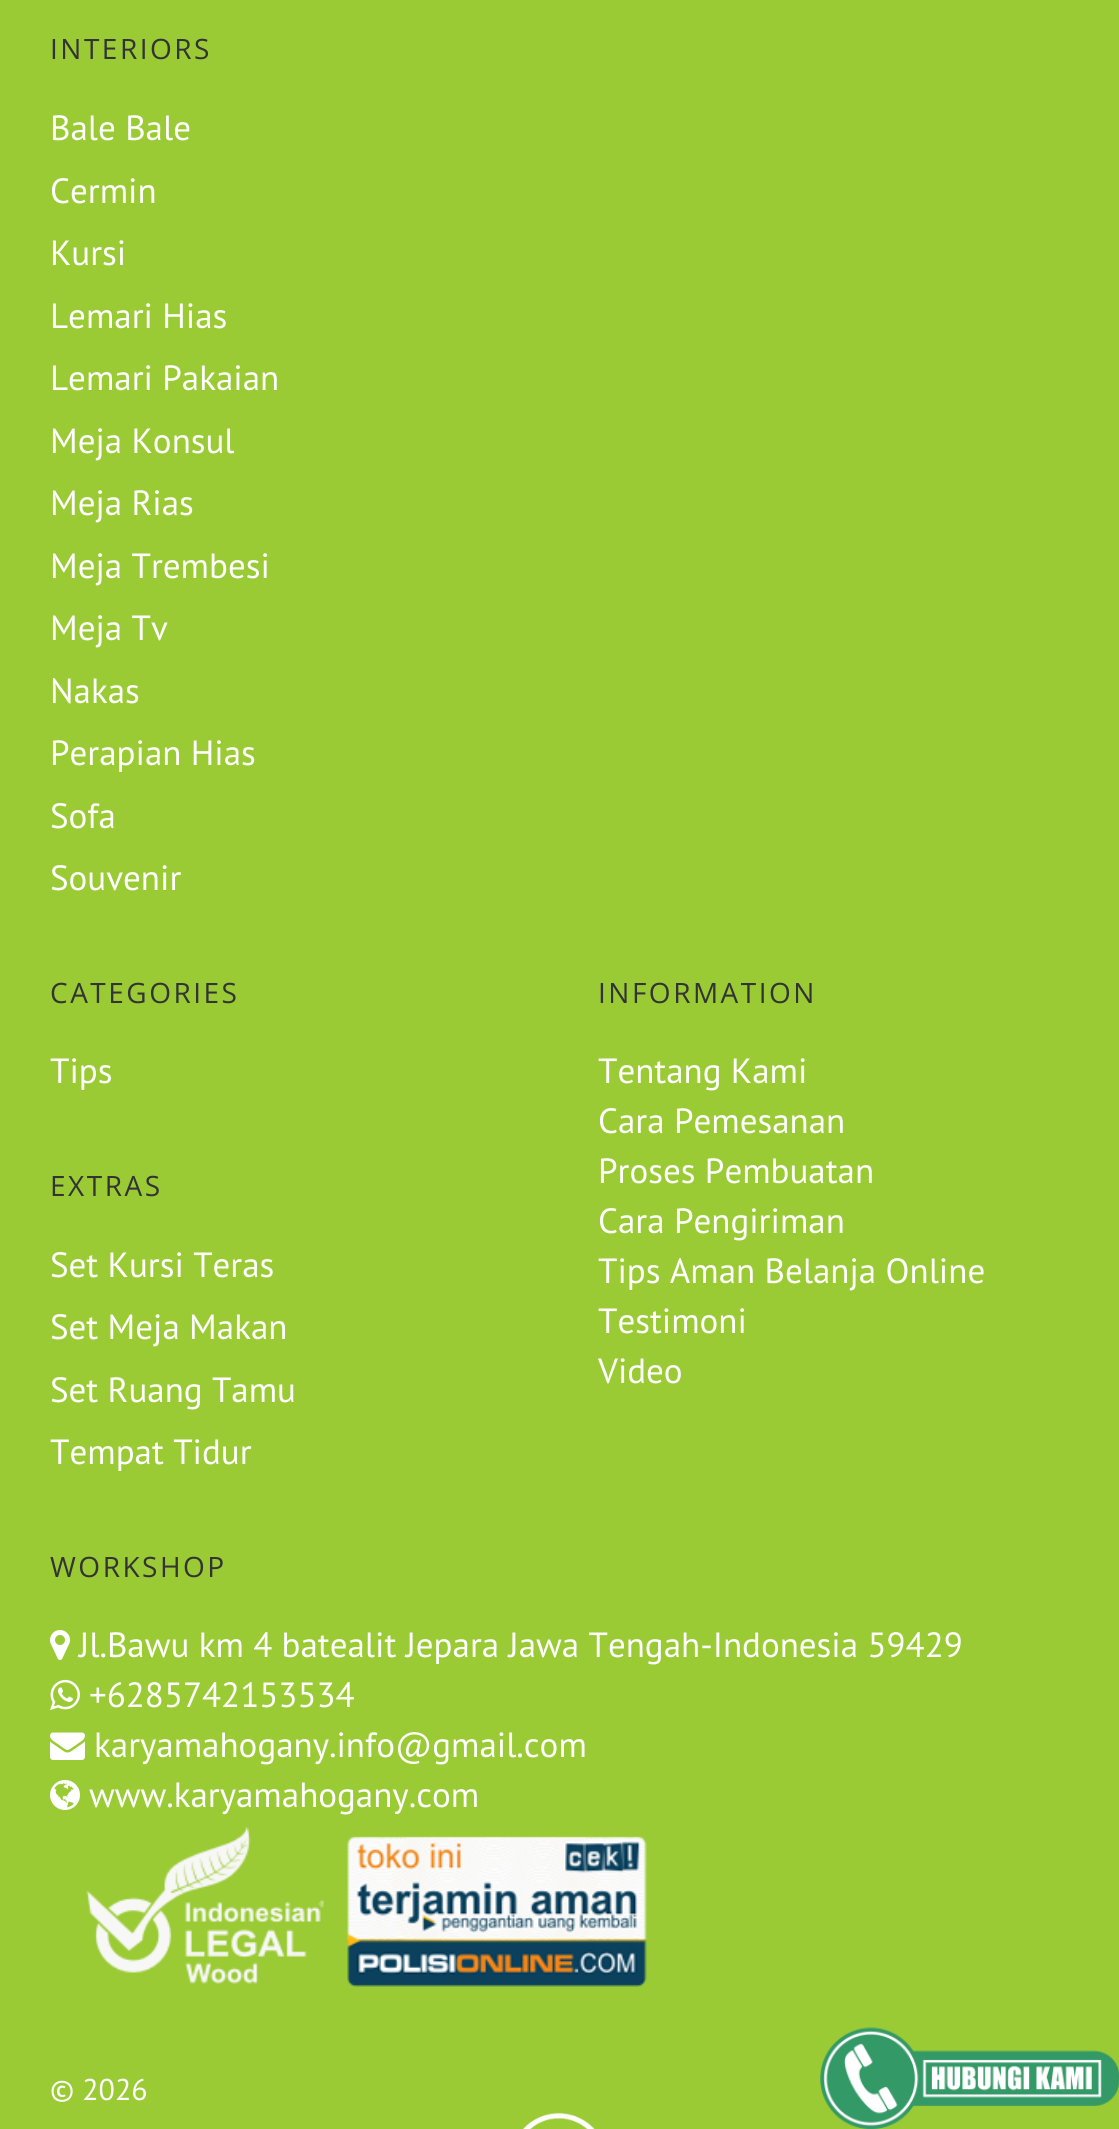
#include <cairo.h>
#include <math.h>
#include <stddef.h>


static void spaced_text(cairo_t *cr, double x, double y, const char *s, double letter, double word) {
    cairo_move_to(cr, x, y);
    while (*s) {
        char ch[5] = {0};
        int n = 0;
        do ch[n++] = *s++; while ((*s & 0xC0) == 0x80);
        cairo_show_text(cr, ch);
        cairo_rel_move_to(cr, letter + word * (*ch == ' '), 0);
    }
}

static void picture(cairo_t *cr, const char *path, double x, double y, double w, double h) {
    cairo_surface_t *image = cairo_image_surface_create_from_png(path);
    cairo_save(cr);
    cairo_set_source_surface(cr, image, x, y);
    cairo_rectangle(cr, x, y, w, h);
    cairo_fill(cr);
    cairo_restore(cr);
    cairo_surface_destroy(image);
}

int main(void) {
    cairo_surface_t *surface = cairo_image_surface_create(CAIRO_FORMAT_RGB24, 1119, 2129);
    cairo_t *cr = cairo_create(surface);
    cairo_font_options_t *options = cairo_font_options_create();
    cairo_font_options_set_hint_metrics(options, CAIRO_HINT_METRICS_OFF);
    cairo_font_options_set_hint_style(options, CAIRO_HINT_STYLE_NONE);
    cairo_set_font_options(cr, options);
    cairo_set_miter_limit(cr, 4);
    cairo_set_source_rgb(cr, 0.604, 0.796, 0.208);
    cairo_paint(cr);
    cairo_select_font_face(cr, "Open Sans", CAIRO_FONT_SLANT_NORMAL, CAIRO_FONT_WEIGHT_NORMAL);
    cairo_set_font_size(cr, 28);
    cairo_set_source_rgb(cr, 0.2, 0.2, 0.2);
    spaced_text(cr, 50, 59, "INTERIORS", 2.5, 0);
    cairo_select_font_face(cr, "PT Sans", CAIRO_FONT_SLANT_NORMAL, CAIRO_FONT_WEIGHT_NORMAL);
    cairo_set_font_size(cr, 35);
    cairo_set_source_rgb(cr, 1, 1, 1);
    cairo_move_to(cr, 50, 140);
    cairo_show_text(cr, "Bale Bale");
    cairo_move_to(cr, 50, 203);
    cairo_show_text(cr, "Cermin");
    cairo_move_to(cr, 50, 265);
    cairo_show_text(cr, "Kursi");
    cairo_move_to(cr, 50, 328);
    cairo_show_text(cr, "Lemari Hias");
    cairo_move_to(cr, 50, 390);
    cairo_show_text(cr, "Lemari Pakaian");
    cairo_move_to(cr, 50, 453);
    cairo_show_text(cr, "Meja Konsul");
    cairo_move_to(cr, 50, 515);
    cairo_show_text(cr, "Meja Rias");
    cairo_move_to(cr, 50, 578);
    cairo_show_text(cr, "Meja Trembesi");
    cairo_move_to(cr, 50, 640);
    cairo_show_text(cr, "Meja Tv");
    cairo_move_to(cr, 50, 703);
    cairo_show_text(cr, "Nakas");
    cairo_move_to(cr, 50, 765);
    cairo_show_text(cr, "Perapian Hias");
    cairo_move_to(cr, 50, 828);
    cairo_show_text(cr, "Sofa");
    cairo_move_to(cr, 50, 890);
    cairo_show_text(cr, "Souvenir");
    cairo_select_font_face(cr, "Open Sans", CAIRO_FONT_SLANT_NORMAL, CAIRO_FONT_WEIGHT_NORMAL);
    cairo_set_font_size(cr, 28);
    cairo_set_source_rgb(cr, 0.2, 0.2, 0.2);
    spaced_text(cr, 50, 1003, "CATEGORIES", 2.5, 0);
    cairo_select_font_face(cr, "PT Sans", CAIRO_FONT_SLANT_NORMAL, CAIRO_FONT_WEIGHT_NORMAL);
    cairo_set_font_size(cr, 35);
    cairo_set_source_rgb(cr, 1, 1, 1);
    cairo_move_to(cr, 50, 1083);
    cairo_show_text(cr, "Tips");
    cairo_select_font_face(cr, "Open Sans", CAIRO_FONT_SLANT_NORMAL, CAIRO_FONT_WEIGHT_NORMAL);
    cairo_set_font_size(cr, 28);
    cairo_set_source_rgb(cr, 0.2, 0.2, 0.2);
    spaced_text(cr, 50, 1196, "EXTRAS", 2.5, 0);
    cairo_select_font_face(cr, "PT Sans", CAIRO_FONT_SLANT_NORMAL, CAIRO_FONT_WEIGHT_NORMAL);
    cairo_set_font_size(cr, 35);
    cairo_set_source_rgb(cr, 1, 1, 1);
    cairo_move_to(cr, 50, 1277);
    cairo_show_text(cr, "Set Kursi Teras");
    cairo_move_to(cr, 50, 1339);
    cairo_show_text(cr, "Set Meja Makan");
    cairo_move_to(cr, 50, 1402);
    cairo_show_text(cr, "Set Ruang Tamu");
    cairo_move_to(cr, 50, 1464);
    cairo_show_text(cr, "Tempat Tidur");
    cairo_select_font_face(cr, "Open Sans", CAIRO_FONT_SLANT_NORMAL, CAIRO_FONT_WEIGHT_NORMAL);
    cairo_set_font_size(cr, 28);
    cairo_set_source_rgb(cr, 0.2, 0.2, 0.2);
    spaced_text(cr, 598, 1003, "INFORMATION", 2.5, 0);
    cairo_select_font_face(cr, "PT Sans", CAIRO_FONT_SLANT_NORMAL, CAIRO_FONT_WEIGHT_NORMAL);
    cairo_set_font_size(cr, 35);
    cairo_set_source_rgb(cr, 1, 1, 1);
    cairo_move_to(cr, 598, 1083);
    cairo_show_text(cr, "Tentang Kami");
    cairo_move_to(cr, 598, 1133);
    cairo_show_text(cr, "Cara Pemesanan");
    cairo_move_to(cr, 598, 1183);
    cairo_show_text(cr, "Proses Pembuatan");
    cairo_move_to(cr, 598, 1233);
    cairo_show_text(cr, "Cara Pengiriman");
    cairo_move_to(cr, 598, 1283);
    cairo_show_text(cr, "Tips Aman Belanja Online");
    cairo_move_to(cr, 598, 1333);
    cairo_show_text(cr, "Testimoni");
    cairo_move_to(cr, 598, 1383);
    cairo_show_text(cr, "Video");
    cairo_select_font_face(cr, "Open Sans", CAIRO_FONT_SLANT_NORMAL, CAIRO_FONT_WEIGHT_NORMAL);
    cairo_set_font_size(cr, 28);
    cairo_set_source_rgb(cr, 0.2, 0.2, 0.2);
    spaced_text(cr, 50, 1577, "WORKSHOP", 2.5, 0);
    picture(cr, "img1.png", 50, 1630, 20, 30);
    cairo_select_font_face(cr, "PT Sans", CAIRO_FONT_SLANT_NORMAL, CAIRO_FONT_WEIGHT_NORMAL);
    cairo_set_font_size(cr, 35);
    cairo_set_source_rgb(cr, 1, 1, 1);
    cairo_move_to(cr, 79, 1657);
    cairo_show_text(cr, "Jl.Bawu km 4 batealit Jepara Jawa Tengah-Indonesia 59429");
    picture(cr, "img2.png", 50, 1679, 30, 31);
    cairo_move_to(cr, 89, 1707);
    cairo_show_text(cr, "+6285742153534");
    picture(cr, "img3.png", 50, 1732, 35, 28);
    cairo_move_to(cr, 94, 1757);
    cairo_show_text(cr, "karyamahogany.info@gmail.com");
    picture(cr, "img4.png", 50, 1780, 30, 30);
    cairo_move_to(cr, 89, 1807);
    cairo_show_text(cr, "www.karyamahogany.com");
    picture(cr, "img5.png", 86, 1827, 561, 160);
    picture(cr, "img6.png", 820, 2027, 299, 102);
    cairo_set_font_size(cr, 30);
    cairo_move_to(cr, 50, 2100);
    cairo_show_text(cr, "© 2026");
    picture(cr, "img7.png", 523, 2112, 72, 17);
    cairo_surface_write_to_png(surface, "page.png");
    cairo_font_options_destroy(options);
    cairo_destroy(cr);
    cairo_surface_destroy(surface);
    return 0;
}
